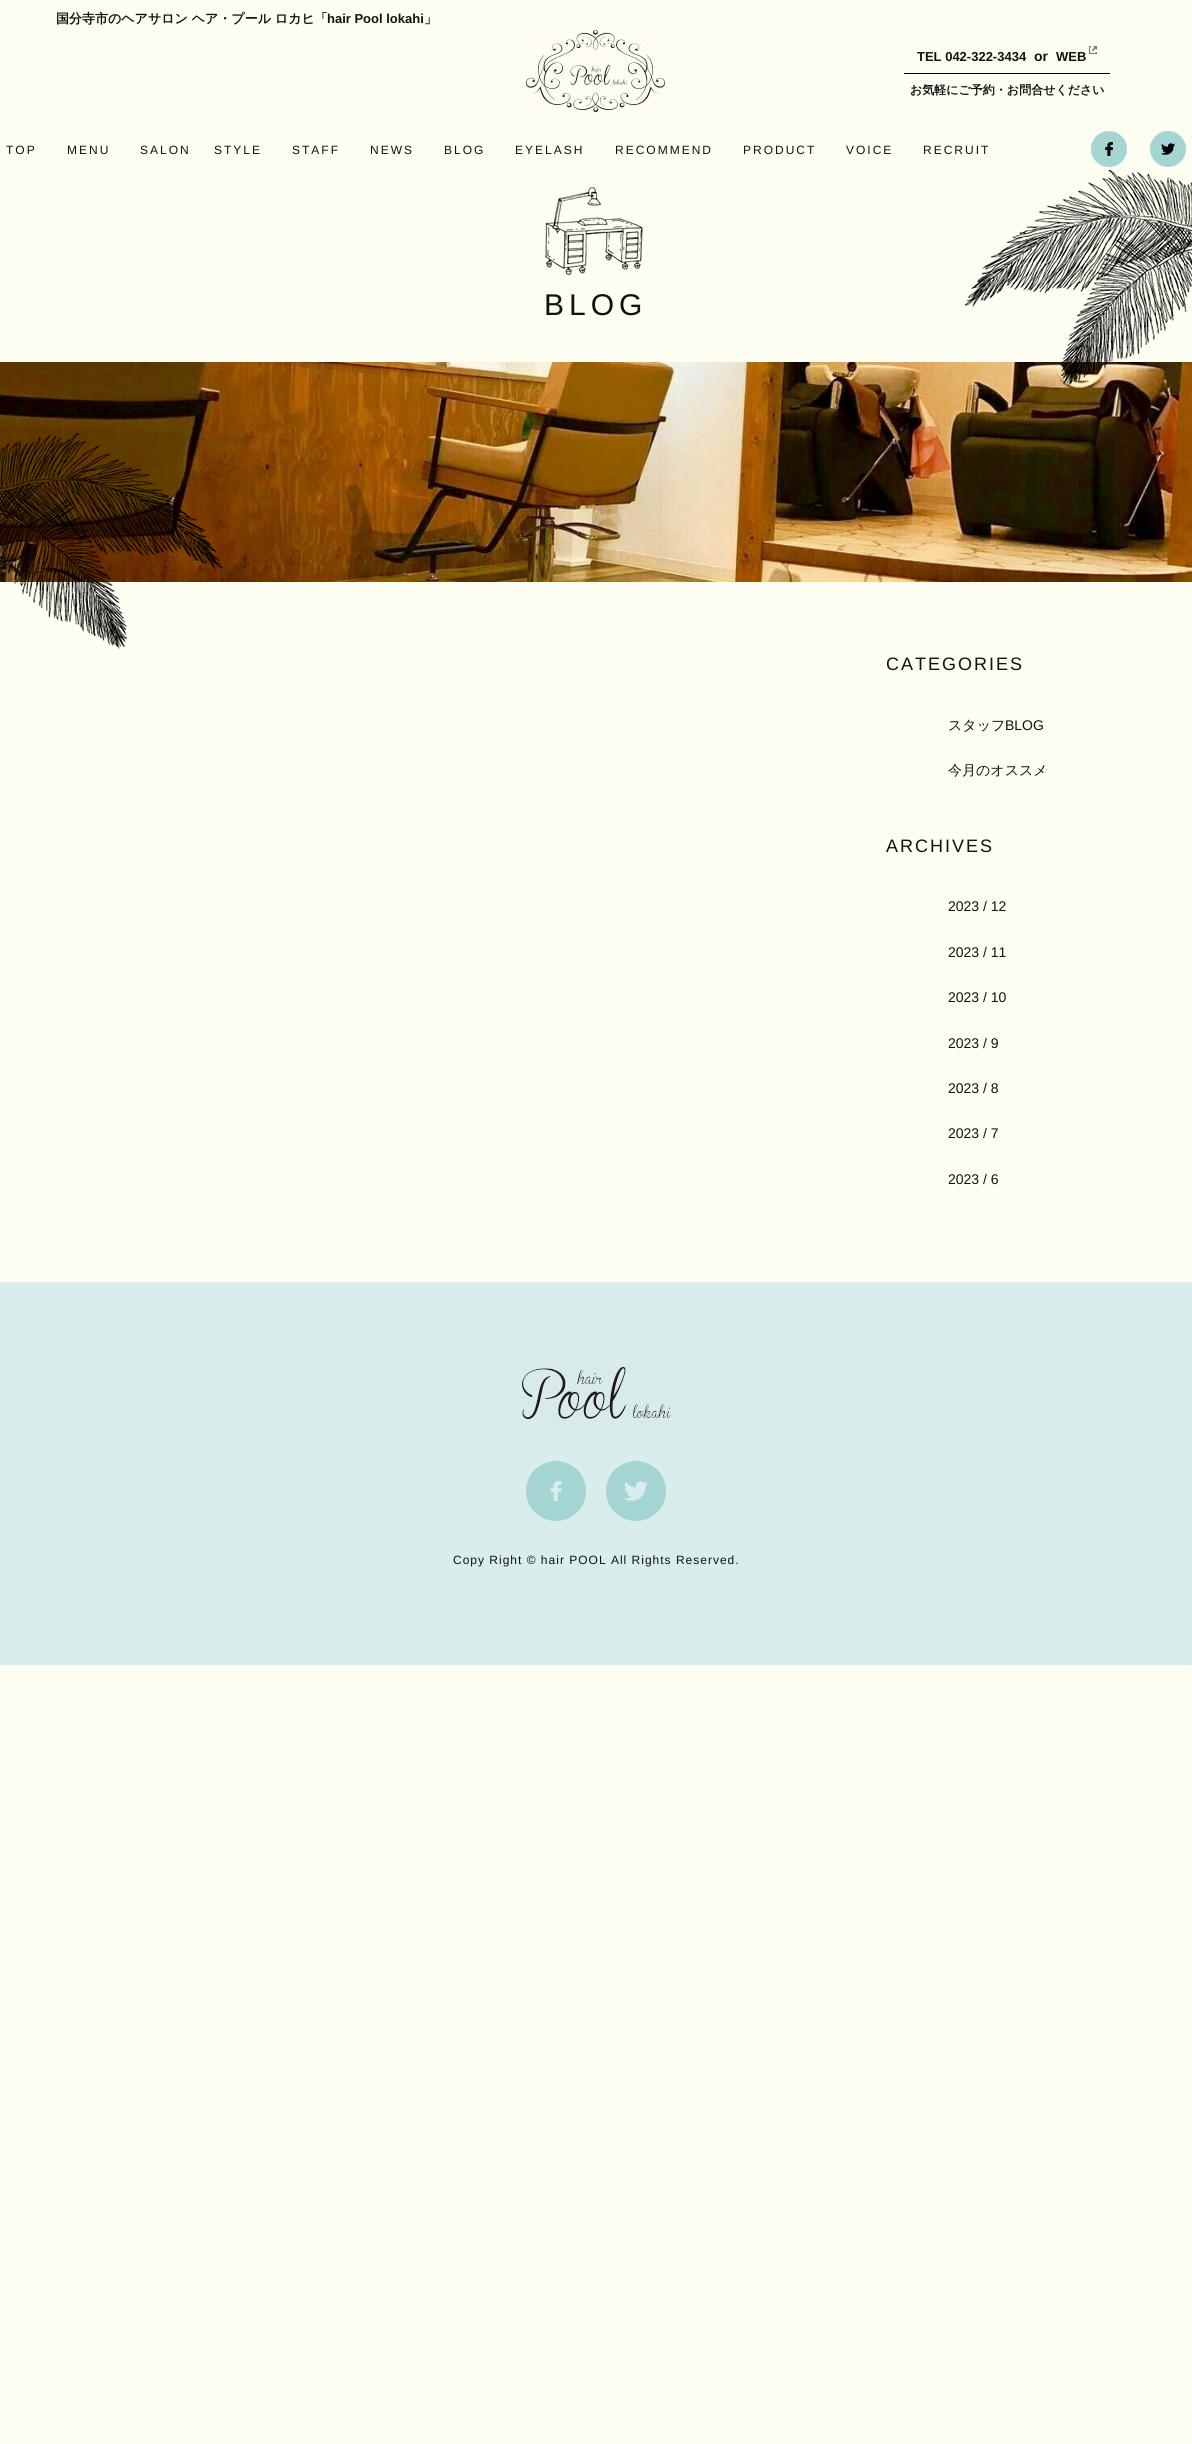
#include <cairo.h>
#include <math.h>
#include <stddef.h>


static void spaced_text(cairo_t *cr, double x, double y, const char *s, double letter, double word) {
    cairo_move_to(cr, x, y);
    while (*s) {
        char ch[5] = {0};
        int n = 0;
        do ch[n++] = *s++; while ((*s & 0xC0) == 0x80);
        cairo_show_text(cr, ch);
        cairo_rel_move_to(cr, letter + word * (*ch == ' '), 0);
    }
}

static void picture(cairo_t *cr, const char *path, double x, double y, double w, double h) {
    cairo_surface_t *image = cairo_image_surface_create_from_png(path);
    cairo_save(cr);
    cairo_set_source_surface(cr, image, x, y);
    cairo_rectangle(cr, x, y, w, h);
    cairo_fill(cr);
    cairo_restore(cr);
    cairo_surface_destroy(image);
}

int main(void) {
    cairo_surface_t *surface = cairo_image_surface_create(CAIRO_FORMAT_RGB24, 1192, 2444);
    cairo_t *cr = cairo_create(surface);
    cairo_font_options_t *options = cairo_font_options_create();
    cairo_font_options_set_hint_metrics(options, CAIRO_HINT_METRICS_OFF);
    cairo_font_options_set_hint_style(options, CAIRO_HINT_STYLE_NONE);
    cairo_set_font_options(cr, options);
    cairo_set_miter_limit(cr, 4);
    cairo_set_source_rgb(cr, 0.996, 0.992, 0.949);
    cairo_paint(cr);
    cairo_select_font_face(cr, "WenQuanYi Zen Hei", CAIRO_FONT_SLANT_NORMAL, CAIRO_FONT_WEIGHT_BOLD);
    cairo_set_font_size(cr, 13);
    cairo_set_source_rgb(cr, 0.067, 0.067, 0.067);
    cairo_move_to(cr, 56, 23);
    cairo_show_text(cr, "国分寺市のヘアサロン ヘア・プール ロカヒ「");
    cairo_select_font_face(cr, "Liberation Sans", CAIRO_FONT_SLANT_NORMAL, CAIRO_FONT_WEIGHT_BOLD);
    cairo_move_to(cr, 327, 23);
    cairo_show_text(cr, "hair Pool lokahi");
    cairo_select_font_face(cr, "WenQuanYi Zen Hei", CAIRO_FONT_SLANT_NORMAL, CAIRO_FONT_WEIGHT_BOLD);
    cairo_move_to(cr, 424, 23);
    cairo_show_text(cr, "」");
    picture(cr, "img1.png", 526, 30, 140, 82);
    picture(cr, "img2.png", 1089, 46, 8, 8);
    cairo_select_font_face(cr, "Liberation Sans", CAIRO_FONT_SLANT_NORMAL, CAIRO_FONT_WEIGHT_BOLD);
    cairo_move_to(cr, 917, 61);
    cairo_show_text(cr, "TEL 042-322-3434");
    cairo_set_font_size(cr, 14);
    cairo_move_to(cr, 1034, 61);
    cairo_show_text(cr, "or");
    cairo_set_font_size(cr, 13);
    cairo_move_to(cr, 1056, 61);
    cairo_show_text(cr, "WEB");
    cairo_set_source_rgb(cr, 0, 0, 0);
    cairo_rectangle(cr, 904, 73, 206, 1);
    cairo_fill(cr);
    cairo_select_font_face(cr, "WenQuanYi Zen Hei", CAIRO_FONT_SLANT_NORMAL, CAIRO_FONT_WEIGHT_BOLD);
    cairo_set_font_size(cr, 12);
    cairo_set_source_rgb(cr, 0.067, 0.067, 0.067);
    cairo_move_to(cr, 910, 94);
    cairo_show_text(cr, "お気軽にご予約・お問合せください");
    cairo_select_font_face(cr, "Liberation Sans", CAIRO_FONT_SLANT_NORMAL, CAIRO_FONT_WEIGHT_NORMAL);
    spaced_text(cr, 6, 154, "TOP", 2, 0);
    spaced_text(cr, 67, 154, "MENU", 2, 0);
    spaced_text(cr, 140, 154, "SALON", 2, 0);
    spaced_text(cr, 214, 154, "STYLE", 2, 0);
    spaced_text(cr, 292, 154, "STAFF", 2, 0);
    spaced_text(cr, 370, 154, "NEWS", 2, 0);
    spaced_text(cr, 444, 154, "BLOG", 2, 0);
    spaced_text(cr, 515, 154, "EYELASH", 2, 0);
    spaced_text(cr, 615, 154, "RECOMMEND", 2, 0);
    spaced_text(cr, 743, 154, "PRODUCT", 2, 0);
    spaced_text(cr, 846, 154, "VOICE", 2, 0);
    spaced_text(cr, 923, 154, "RECRUIT", 2, 0);
    picture(cr, "img3.png", 1091, 131, 36, 36);
    picture(cr, "img4.png", 1150, 131, 36, 36);
    picture(cr, "img5.png", 545, 187, 98, 88);
    cairo_set_font_size(cr, 30);
    spaced_text(cr, 544, 315, "BLOG", 5, 0);
    picture(cr, "img7.png", 0, 362, 1192, 220);
    picture(cr, "img6.png", 965, 170, 227, 216);
    picture(cr, "img8.png", 0, 433, 223, 216);
    cairo_set_font_size(cr, 18);
    spaced_text(cr, 886, 670, "CATEGORIES", 2, 0);
    cairo_select_font_face(cr, "WenQuanYi Zen Hei Medium", CAIRO_FONT_SLANT_NORMAL, CAIRO_FONT_WEIGHT_NORMAL);
    cairo_set_font_size(cr, 14);
    cairo_move_to(cr, 948, 730);
    cairo_show_text(cr, "スタッフ");
    cairo_select_font_face(cr, "Liberation Sans", CAIRO_FONT_SLANT_NORMAL, CAIRO_FONT_WEIGHT_NORMAL);
    cairo_move_to(cr, 1005, 730);
    cairo_show_text(cr, "BLOG");
    cairo_select_font_face(cr, "WenQuanYi Zen Hei Medium", CAIRO_FONT_SLANT_NORMAL, CAIRO_FONT_WEIGHT_NORMAL);
    cairo_move_to(cr, 948, 775);
    cairo_show_text(cr, "今月のオススメ");
    cairo_select_font_face(cr, "Liberation Sans", CAIRO_FONT_SLANT_NORMAL, CAIRO_FONT_WEIGHT_NORMAL);
    cairo_set_font_size(cr, 18);
    spaced_text(cr, 886, 852, "ARCHIVES", 2, 0);
    cairo_set_font_size(cr, 14);
    cairo_move_to(cr, 948, 911);
    cairo_show_text(cr, "2023 / 12");
    cairo_move_to(cr, 948, 957);
    cairo_show_text(cr, "2023 / 11");
    cairo_move_to(cr, 948, 1002);
    cairo_show_text(cr, "2023 / 10");
    cairo_move_to(cr, 948, 1048);
    cairo_show_text(cr, "2023 / 9");
    cairo_move_to(cr, 948, 1093);
    cairo_show_text(cr, "2023 / 8");
    cairo_move_to(cr, 948, 1138);
    cairo_show_text(cr, "2023 / 7");
    cairo_move_to(cr, 948, 1184);
    cairo_show_text(cr, "2023 / 6");
    cairo_set_source_rgb(cr, 0.851, 0.929, 0.925);
    cairo_rectangle(cr, 0, 1282, 1192, 383);
    cairo_fill(cr);
    picture(cr, "img9.png", 522, 1362, 149, 64);
    picture(cr, "img10.png", 526, 1461, 60, 60);
    picture(cr, "img11.png", 606, 1461, 60, 60);
    cairo_set_font_size(cr, 12);
    cairo_set_source_rgb(cr, 0.067, 0.067, 0.067);
    spaced_text(cr, 453, 1564, "Copy Right © hair POOL All Rights Reserved.", 1, 0);
    cairo_surface_write_to_png(surface, "page.png");
    cairo_font_options_destroy(options);
    cairo_destroy(cr);
    cairo_surface_destroy(surface);
    return 0;
}
